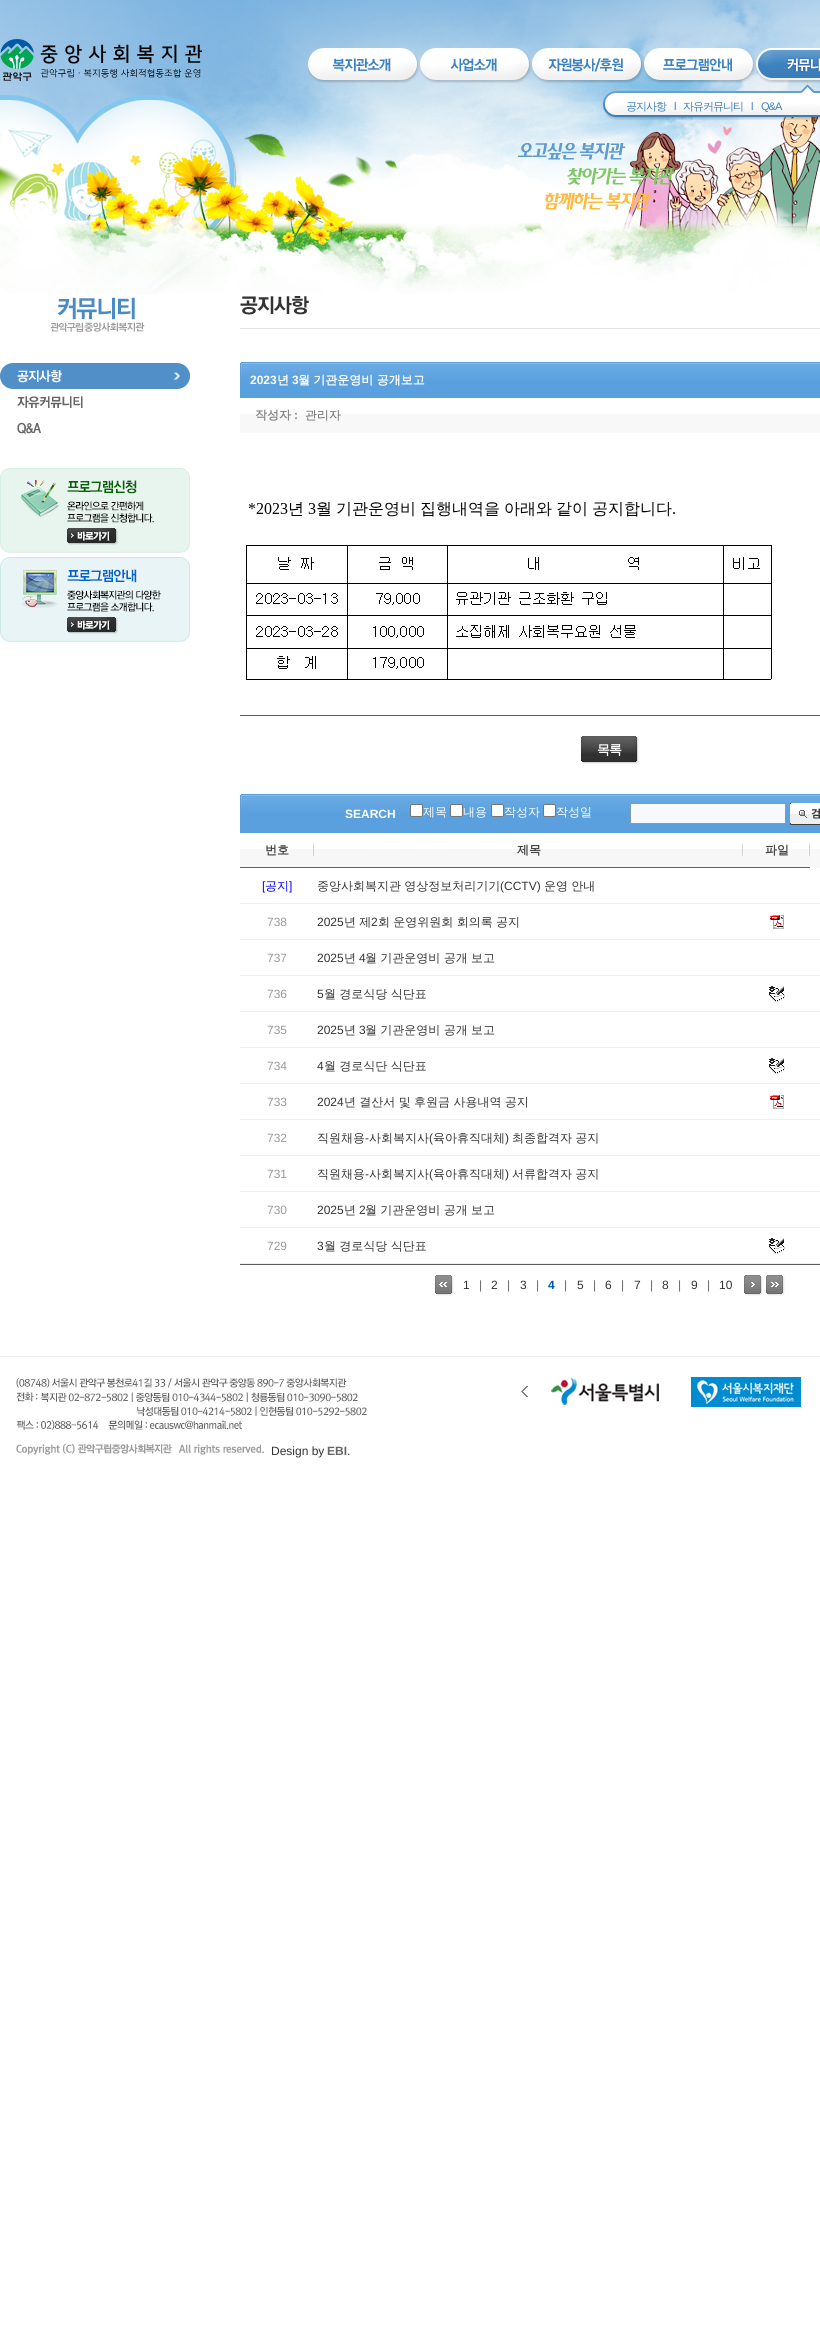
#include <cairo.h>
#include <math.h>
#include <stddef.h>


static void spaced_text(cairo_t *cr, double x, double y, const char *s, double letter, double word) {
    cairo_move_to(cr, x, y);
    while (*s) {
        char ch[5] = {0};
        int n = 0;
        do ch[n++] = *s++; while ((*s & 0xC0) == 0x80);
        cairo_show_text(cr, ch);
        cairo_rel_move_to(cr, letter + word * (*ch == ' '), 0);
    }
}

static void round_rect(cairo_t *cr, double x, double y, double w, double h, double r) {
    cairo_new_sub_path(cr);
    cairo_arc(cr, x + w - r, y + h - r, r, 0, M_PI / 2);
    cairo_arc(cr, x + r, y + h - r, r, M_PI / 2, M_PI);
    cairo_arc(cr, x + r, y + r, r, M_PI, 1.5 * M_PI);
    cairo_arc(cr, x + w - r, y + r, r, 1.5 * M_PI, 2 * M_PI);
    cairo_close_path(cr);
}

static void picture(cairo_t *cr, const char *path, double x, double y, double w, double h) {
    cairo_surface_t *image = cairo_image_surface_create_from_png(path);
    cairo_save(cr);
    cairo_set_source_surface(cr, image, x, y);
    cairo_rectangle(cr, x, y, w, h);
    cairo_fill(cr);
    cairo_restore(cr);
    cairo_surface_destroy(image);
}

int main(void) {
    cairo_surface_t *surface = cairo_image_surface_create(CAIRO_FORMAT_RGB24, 820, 2330);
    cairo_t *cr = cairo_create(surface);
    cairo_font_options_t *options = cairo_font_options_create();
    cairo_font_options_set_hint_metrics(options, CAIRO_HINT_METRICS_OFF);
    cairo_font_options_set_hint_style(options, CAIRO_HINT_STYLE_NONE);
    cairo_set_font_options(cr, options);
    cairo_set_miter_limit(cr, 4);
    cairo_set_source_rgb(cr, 1, 1, 1);
    cairo_paint(cr);
    picture(cr, "img1.png", 0, 0, 820, 294);
    picture(cr, "img2.png", 0, 39, 202, 42);
    picture(cr, "img3.png", 308, 48, 112, 35);
    picture(cr, "img4.png", 420, 48, 112, 35);
    picture(cr, "img5.png", 532, 48, 112, 35);
    picture(cr, "img6.png", 644, 48, 112, 35);
    picture(cr, "img7.png", 756, 48, 64, 35);
    picture(cr, "img8.png", 603, 84, 217, 36);
    cairo_select_font_face(cr, "WenQuanYi Zen Hei Medium", CAIRO_FONT_SLANT_NORMAL, CAIRO_FONT_WEIGHT_NORMAL);
    cairo_set_font_size(cr, 11);
    cairo_set_source_rgb(cr, 0.235, 0.506, 0.745);
    spaced_text(cr, 626, 110, "공지사항", -1, 0);
    cairo_select_font_face(cr, "Liberation Sans", CAIRO_FONT_SLANT_NORMAL, CAIRO_FONT_WEIGHT_NORMAL);
    spaced_text(cr, 674, 110, "l", -1, 0);
    cairo_select_font_face(cr, "WenQuanYi Zen Hei Medium", CAIRO_FONT_SLANT_NORMAL, CAIRO_FONT_WEIGHT_NORMAL);
    spaced_text(cr, 683, 110, "자유커뮤니티", -1, 0);
    cairo_select_font_face(cr, "Liberation Sans", CAIRO_FONT_SLANT_NORMAL, CAIRO_FONT_WEIGHT_NORMAL);
    spaced_text(cr, 751, 110, "l", -1, 0);
    spaced_text(cr, 761, 110, "Q&A", -1, 0);
    picture(cr, "img9.png", 517, 143, 109, 17);
    picture(cr, "img10.png", 567, 168, 108, 17);
    picture(cr, "img11.png", 545, 193, 107, 17);
    picture(cr, "img12.png", 50, 297, 95, 35);
    picture(cr, "img13.png", 0, 363, 190, 26);
    picture(cr, "img14.png", 17, 396, 66, 12);
    picture(cr, "img15.png", 17, 422, 24, 12);
    picture(cr, "img16.png", 0, 468, 190, 85);
    picture(cr, "img17.png", 0, 557, 190, 85);
    cairo_set_source_rgb(cr, 0.886, 0.886, 0.886);
    cairo_rectangle(cr, 240, 328, 580, 1);
    cairo_fill(cr);
    picture(cr, "img18.png", 240, 296, 69, 19);
    picture(cr, "img19.png", 240, 362, 580, 36);
    cairo_select_font_face(cr, "Liberation Sans", CAIRO_FONT_SLANT_NORMAL, CAIRO_FONT_WEIGHT_BOLD);
    cairo_set_font_size(cr, 12);
    cairo_set_source_rgb(cr, 1, 1, 1);
    cairo_move_to(cr, 250, 384);
    cairo_show_text(cr, "2023");
    cairo_select_font_face(cr, "WenQuanYi Zen Hei", CAIRO_FONT_SLANT_NORMAL, CAIRO_FONT_WEIGHT_BOLD);
    cairo_move_to(cr, 277, 384);
    cairo_show_text(cr, "년");
    cairo_select_font_face(cr, "Liberation Sans", CAIRO_FONT_SLANT_NORMAL, CAIRO_FONT_WEIGHT_BOLD);
    cairo_move_to(cr, 292, 384);
    cairo_show_text(cr, "3");
    cairo_select_font_face(cr, "WenQuanYi Zen Hei", CAIRO_FONT_SLANT_NORMAL, CAIRO_FONT_WEIGHT_BOLD);
    spaced_text(cr, 298, 384, "월 기관운영비 공개보고", 0, -0.25);
    cairo_set_source_rgb(cr, 0.969, 0.969, 0.969);
    cairo_rectangle(cr, 240, 414, 580, 19);
    cairo_fill(cr);
    cairo_set_source_rgb(cr, 0.533, 0.533, 0.533);
    cairo_move_to(cr, 255, 419);
    cairo_show_text(cr, "작성자");
    cairo_select_font_face(cr, "Liberation Sans", CAIRO_FONT_SLANT_NORMAL, CAIRO_FONT_WEIGHT_BOLD);
    cairo_move_to(cr, 294, 419);
    cairo_show_text(cr, ":");
    cairo_select_font_face(cr, "WenQuanYi Zen Hei Medium", CAIRO_FONT_SLANT_NORMAL, CAIRO_FONT_WEIGHT_NORMAL);
    cairo_set_source_rgb(cr, 0.4, 0.4, 0.4);
    cairo_move_to(cr, 305, 419);
    cairo_show_text(cr, "관리자");
    picture(cr, "img20.png", 246, 502, 526, 178);
    cairo_set_source_rgb(cr, 0.373, 0.373, 0.373);
    cairo_rectangle(cr, 240, 715, 580, 1);
    cairo_fill(cr);
    picture(cr, "img21.png", 581, 736, 53, 28);
    picture(cr, "img22.png", 634, 736, 5, 28);
    cairo_select_font_face(cr, "WenQuanYi Zen Hei", CAIRO_FONT_SLANT_NORMAL, CAIRO_FONT_WEIGHT_BOLD);
    cairo_set_font_size(cr, 13);
    cairo_set_source_rgb(cr, 1, 1, 1);
    spaced_text(cr, 597, 754, "목록", -1, 0);
    picture(cr, "img23.png", 240, 794, 580, 39);
    picture(cr, "img24.png", 240, 794, 3, 17);
    cairo_select_font_face(cr, "Liberation Sans", CAIRO_FONT_SLANT_NORMAL, CAIRO_FONT_WEIGHT_BOLD);
    cairo_set_font_size(cr, 12);
    cairo_move_to(cr, 345, 818);
    cairo_show_text(cr, "SEARCH");
    round_rect(cr, 410.5, 804.5, 12, 12, 1.5);
    cairo_fill_preserve(cr);
    cairo_set_source_rgb(cr, 0.463, 0.463, 0.463);
    cairo_set_line_width(cr, 1);
    cairo_stroke(cr);
    cairo_select_font_face(cr, "WenQuanYi Zen Hei Medium", CAIRO_FONT_SLANT_NORMAL, CAIRO_FONT_WEIGHT_NORMAL);
    cairo_set_source_rgb(cr, 1, 1, 1);
    cairo_move_to(cr, 423, 816);
    cairo_show_text(cr, "제목");
    round_rect(cr, 450.5, 804.5, 12, 12, 1.5);
    cairo_fill_preserve(cr);
    cairo_set_source_rgb(cr, 0.463, 0.463, 0.463);
    cairo_stroke(cr);
    cairo_set_source_rgb(cr, 1, 1, 1);
    cairo_move_to(cr, 463, 816);
    cairo_show_text(cr, "내용");
    round_rect(cr, 491.5, 804.5, 12, 12, 1.5);
    cairo_fill_preserve(cr);
    cairo_set_source_rgb(cr, 0.463, 0.463, 0.463);
    cairo_stroke(cr);
    cairo_set_source_rgb(cr, 1, 1, 1);
    cairo_move_to(cr, 504, 816);
    cairo_show_text(cr, "작성자");
    round_rect(cr, 543.5, 804.5, 12, 12, 1.5);
    cairo_fill_preserve(cr);
    cairo_set_source_rgb(cr, 0.463, 0.463, 0.463);
    cairo_stroke(cr);
    cairo_set_source_rgb(cr, 1, 1, 1);
    cairo_move_to(cr, 556, 816);
    cairo_show_text(cr, "작성일");
    cairo_set_source_rgb(cr, 0.969, 0.976, 0.984);
    cairo_rectangle(cr, 630.5, 803.5, 155, 20);
    cairo_fill_preserve(cr);
    cairo_set_source_rgb(cr, 0.498, 0.616, 0.725);
    cairo_stroke(cr);
    picture(cr, "img25.png", 790, 803, 30, 22);
    picture(cr, "img26.png", 240, 844, 74, 24);
    cairo_select_font_face(cr, "WenQuanYi Zen Hei", CAIRO_FONT_SLANT_NORMAL, CAIRO_FONT_WEIGHT_BOLD);
    cairo_set_source_rgb(cr, 0.271, 0.271, 0.271);
    cairo_move_to(cr, 265, 854);
    cairo_show_text(cr, "번호");
    picture(cr, "img27.png", 314, 844, 429, 24);
    cairo_move_to(cr, 517, 854);
    cairo_show_text(cr, "제목");
    picture(cr, "img28.png", 743, 844, 67, 24);
    cairo_move_to(cr, 765, 854);
    cairo_show_text(cr, "파일");
    cairo_set_source_rgb(cr, 0.969, 0.969, 0.969);
    cairo_rectangle(cr, 810, 849, 10, 19);
    cairo_fill(cr);
    cairo_select_font_face(cr, "Liberation Sans", CAIRO_FONT_SLANT_NORMAL, CAIRO_FONT_WEIGHT_NORMAL);
    cairo_set_source_rgb(cr, 0, 0, 1);
    cairo_move_to(cr, 262, 890);
    cairo_show_text(cr, "[");
    cairo_select_font_face(cr, "WenQuanYi Zen Hei Medium", CAIRO_FONT_SLANT_NORMAL, CAIRO_FONT_WEIGHT_NORMAL);
    cairo_move_to(cr, 265, 890);
    cairo_show_text(cr, "공지");
    cairo_select_font_face(cr, "Liberation Sans", CAIRO_FONT_SLANT_NORMAL, CAIRO_FONT_WEIGHT_NORMAL);
    cairo_move_to(cr, 289, 890);
    cairo_show_text(cr, "]");
    cairo_select_font_face(cr, "WenQuanYi Zen Hei Medium", CAIRO_FONT_SLANT_NORMAL, CAIRO_FONT_WEIGHT_NORMAL);
    cairo_set_source_rgb(cr, 0.2, 0.2, 0.2);
    spaced_text(cr, 317, 890, "중앙사회복지관 영상정보처리기기", 0, -0.25);
    cairo_select_font_face(cr, "Liberation Sans", CAIRO_FONT_SLANT_NORMAL, CAIRO_FONT_WEIGHT_NORMAL);
    cairo_move_to(cr, 500, 890);
    cairo_show_text(cr, "(CCTV)");
    cairo_select_font_face(cr, "WenQuanYi Zen Hei Medium", CAIRO_FONT_SLANT_NORMAL, CAIRO_FONT_WEIGHT_NORMAL);
    spaced_text(cr, 544, 890, "운영 안내", 0, -0.25);
    cairo_set_source_rgb(cr, 0.933, 0.933, 0.933);
    cairo_rectangle(cr, 240, 903, 580, 1);
    cairo_fill(cr);
    cairo_select_font_face(cr, "Liberation Sans", CAIRO_FONT_SLANT_NORMAL, CAIRO_FONT_WEIGHT_NORMAL);
    cairo_set_source_rgb(cr, 0.6, 0.6, 0.6);
    cairo_move_to(cr, 267, 926);
    cairo_show_text(cr, "738");
    cairo_set_source_rgb(cr, 0.2, 0.2, 0.2);
    cairo_move_to(cr, 317, 926);
    cairo_show_text(cr, "2025");
    cairo_select_font_face(cr, "WenQuanYi Zen Hei Medium", CAIRO_FONT_SLANT_NORMAL, CAIRO_FONT_WEIGHT_NORMAL);
    spaced_text(cr, 344, 926, "년 제", 0, -0.25);
    cairo_select_font_face(cr, "Liberation Sans", CAIRO_FONT_SLANT_NORMAL, CAIRO_FONT_WEIGHT_NORMAL);
    cairo_move_to(cr, 371, 926);
    cairo_show_text(cr, "2");
    cairo_select_font_face(cr, "WenQuanYi Zen Hei Medium", CAIRO_FONT_SLANT_NORMAL, CAIRO_FONT_WEIGHT_NORMAL);
    spaced_text(cr, 378, 926, "회 운영위원회 회의록 공지", 0, -0.25);
    picture(cr, "img29.png", 770, 915, 14, 14);
    cairo_set_source_rgb(cr, 0.933, 0.933, 0.933);
    cairo_rectangle(cr, 240, 939, 580, 1);
    cairo_fill(cr);
    cairo_select_font_face(cr, "Liberation Sans", CAIRO_FONT_SLANT_NORMAL, CAIRO_FONT_WEIGHT_NORMAL);
    cairo_set_source_rgb(cr, 0.6, 0.6, 0.6);
    cairo_move_to(cr, 267, 962);
    cairo_show_text(cr, "737");
    cairo_set_source_rgb(cr, 0.2, 0.2, 0.2);
    cairo_move_to(cr, 317, 962);
    cairo_show_text(cr, "2025");
    cairo_select_font_face(cr, "WenQuanYi Zen Hei Medium", CAIRO_FONT_SLANT_NORMAL, CAIRO_FONT_WEIGHT_NORMAL);
    cairo_move_to(cr, 344, 962);
    cairo_show_text(cr, "년");
    cairo_select_font_face(cr, "Liberation Sans", CAIRO_FONT_SLANT_NORMAL, CAIRO_FONT_WEIGHT_NORMAL);
    cairo_move_to(cr, 359, 962);
    cairo_show_text(cr, "4");
    cairo_select_font_face(cr, "WenQuanYi Zen Hei Medium", CAIRO_FONT_SLANT_NORMAL, CAIRO_FONT_WEIGHT_NORMAL);
    spaced_text(cr, 365, 962, "월 기관운영비 공개 보고", 0, -0.25);
    cairo_set_source_rgb(cr, 0.933, 0.933, 0.933);
    cairo_rectangle(cr, 240, 975, 580, 1);
    cairo_fill(cr);
    cairo_select_font_face(cr, "Liberation Sans", CAIRO_FONT_SLANT_NORMAL, CAIRO_FONT_WEIGHT_NORMAL);
    cairo_set_source_rgb(cr, 0.6, 0.6, 0.6);
    cairo_move_to(cr, 267, 998);
    cairo_show_text(cr, "736");
    cairo_set_source_rgb(cr, 0.2, 0.2, 0.2);
    cairo_move_to(cr, 317, 998);
    cairo_show_text(cr, "5");
    cairo_select_font_face(cr, "WenQuanYi Zen Hei Medium", CAIRO_FONT_SLANT_NORMAL, CAIRO_FONT_WEIGHT_NORMAL);
    spaced_text(cr, 324, 998, "월 경로식당 식단표", 0, -0.25);
    picture(cr, "img30.png", 769, 986, 16, 16);
    cairo_set_source_rgb(cr, 0.933, 0.933, 0.933);
    cairo_rectangle(cr, 240, 1011, 580, 1);
    cairo_fill(cr);
    cairo_select_font_face(cr, "Liberation Sans", CAIRO_FONT_SLANT_NORMAL, CAIRO_FONT_WEIGHT_NORMAL);
    cairo_set_source_rgb(cr, 0.6, 0.6, 0.6);
    cairo_move_to(cr, 267, 1034);
    cairo_show_text(cr, "735");
    cairo_set_source_rgb(cr, 0.2, 0.2, 0.2);
    cairo_move_to(cr, 317, 1034);
    cairo_show_text(cr, "2025");
    cairo_select_font_face(cr, "WenQuanYi Zen Hei Medium", CAIRO_FONT_SLANT_NORMAL, CAIRO_FONT_WEIGHT_NORMAL);
    cairo_move_to(cr, 344, 1034);
    cairo_show_text(cr, "년");
    cairo_select_font_face(cr, "Liberation Sans", CAIRO_FONT_SLANT_NORMAL, CAIRO_FONT_WEIGHT_NORMAL);
    cairo_move_to(cr, 359, 1034);
    cairo_show_text(cr, "3");
    cairo_select_font_face(cr, "WenQuanYi Zen Hei Medium", CAIRO_FONT_SLANT_NORMAL, CAIRO_FONT_WEIGHT_NORMAL);
    spaced_text(cr, 365, 1034, "월 기관운영비 공개 보고", 0, -0.25);
    cairo_set_source_rgb(cr, 0.933, 0.933, 0.933);
    cairo_rectangle(cr, 240, 1047, 580, 1);
    cairo_fill(cr);
    cairo_select_font_face(cr, "Liberation Sans", CAIRO_FONT_SLANT_NORMAL, CAIRO_FONT_WEIGHT_NORMAL);
    cairo_set_source_rgb(cr, 0.6, 0.6, 0.6);
    cairo_move_to(cr, 267, 1070);
    cairo_show_text(cr, "734");
    cairo_set_source_rgb(cr, 0.2, 0.2, 0.2);
    cairo_move_to(cr, 317, 1070);
    cairo_show_text(cr, "4");
    cairo_select_font_face(cr, "WenQuanYi Zen Hei Medium", CAIRO_FONT_SLANT_NORMAL, CAIRO_FONT_WEIGHT_NORMAL);
    spaced_text(cr, 324, 1070, "월 경로식단 식단표", 0, -0.25);
    picture(cr, "img30.png", 769, 1058, 16, 16);
    cairo_set_source_rgb(cr, 0.933, 0.933, 0.933);
    cairo_rectangle(cr, 240, 1083, 580, 1);
    cairo_fill(cr);
    cairo_select_font_face(cr, "Liberation Sans", CAIRO_FONT_SLANT_NORMAL, CAIRO_FONT_WEIGHT_NORMAL);
    cairo_set_source_rgb(cr, 0.6, 0.6, 0.6);
    cairo_move_to(cr, 267, 1106);
    cairo_show_text(cr, "733");
    cairo_set_source_rgb(cr, 0.2, 0.2, 0.2);
    cairo_move_to(cr, 317, 1106);
    cairo_show_text(cr, "2024");
    cairo_select_font_face(cr, "WenQuanYi Zen Hei Medium", CAIRO_FONT_SLANT_NORMAL, CAIRO_FONT_WEIGHT_NORMAL);
    spaced_text(cr, 344, 1106, "년 결산서 및 후원금 사용내역 공지", 0, -0.25);
    picture(cr, "img29.png", 770, 1095, 14, 14);
    cairo_set_source_rgb(cr, 0.933, 0.933, 0.933);
    cairo_rectangle(cr, 240, 1119, 580, 1);
    cairo_fill(cr);
    cairo_select_font_face(cr, "Liberation Sans", CAIRO_FONT_SLANT_NORMAL, CAIRO_FONT_WEIGHT_NORMAL);
    cairo_set_source_rgb(cr, 0.6, 0.6, 0.6);
    cairo_move_to(cr, 267, 1142);
    cairo_show_text(cr, "732");
    cairo_select_font_face(cr, "WenQuanYi Zen Hei Medium", CAIRO_FONT_SLANT_NORMAL, CAIRO_FONT_WEIGHT_NORMAL);
    cairo_set_source_rgb(cr, 0.2, 0.2, 0.2);
    cairo_move_to(cr, 317, 1142);
    cairo_show_text(cr, "직원채용");
    cairo_select_font_face(cr, "Liberation Sans", CAIRO_FONT_SLANT_NORMAL, CAIRO_FONT_WEIGHT_NORMAL);
    cairo_move_to(cr, 365, 1142);
    cairo_show_text(cr, "-");
    cairo_select_font_face(cr, "WenQuanYi Zen Hei Medium", CAIRO_FONT_SLANT_NORMAL, CAIRO_FONT_WEIGHT_NORMAL);
    cairo_move_to(cr, 369, 1142);
    cairo_show_text(cr, "사회복지사");
    cairo_select_font_face(cr, "Liberation Sans", CAIRO_FONT_SLANT_NORMAL, CAIRO_FONT_WEIGHT_NORMAL);
    cairo_move_to(cr, 429, 1142);
    cairo_show_text(cr, "(");
    cairo_select_font_face(cr, "WenQuanYi Zen Hei Medium", CAIRO_FONT_SLANT_NORMAL, CAIRO_FONT_WEIGHT_NORMAL);
    cairo_move_to(cr, 433, 1142);
    cairo_show_text(cr, "육아휴직대체");
    cairo_select_font_face(cr, "Liberation Sans", CAIRO_FONT_SLANT_NORMAL, CAIRO_FONT_WEIGHT_NORMAL);
    cairo_move_to(cr, 505, 1142);
    cairo_show_text(cr, ")");
    cairo_select_font_face(cr, "WenQuanYi Zen Hei Medium", CAIRO_FONT_SLANT_NORMAL, CAIRO_FONT_WEIGHT_NORMAL);
    spaced_text(cr, 512, 1142, "최종합격자 공지", 0, -0.25);
    cairo_set_source_rgb(cr, 0.933, 0.933, 0.933);
    cairo_rectangle(cr, 240, 1155, 580, 1);
    cairo_fill(cr);
    cairo_select_font_face(cr, "Liberation Sans", CAIRO_FONT_SLANT_NORMAL, CAIRO_FONT_WEIGHT_NORMAL);
    cairo_set_source_rgb(cr, 0.6, 0.6, 0.6);
    cairo_move_to(cr, 267, 1178);
    cairo_show_text(cr, "731");
    cairo_select_font_face(cr, "WenQuanYi Zen Hei Medium", CAIRO_FONT_SLANT_NORMAL, CAIRO_FONT_WEIGHT_NORMAL);
    cairo_set_source_rgb(cr, 0.2, 0.2, 0.2);
    cairo_move_to(cr, 317, 1178);
    cairo_show_text(cr, "직원채용");
    cairo_select_font_face(cr, "Liberation Sans", CAIRO_FONT_SLANT_NORMAL, CAIRO_FONT_WEIGHT_NORMAL);
    cairo_move_to(cr, 365, 1178);
    cairo_show_text(cr, "-");
    cairo_select_font_face(cr, "WenQuanYi Zen Hei Medium", CAIRO_FONT_SLANT_NORMAL, CAIRO_FONT_WEIGHT_NORMAL);
    cairo_move_to(cr, 369, 1178);
    cairo_show_text(cr, "사회복지사");
    cairo_select_font_face(cr, "Liberation Sans", CAIRO_FONT_SLANT_NORMAL, CAIRO_FONT_WEIGHT_NORMAL);
    cairo_move_to(cr, 429, 1178);
    cairo_show_text(cr, "(");
    cairo_select_font_face(cr, "WenQuanYi Zen Hei Medium", CAIRO_FONT_SLANT_NORMAL, CAIRO_FONT_WEIGHT_NORMAL);
    cairo_move_to(cr, 433, 1178);
    cairo_show_text(cr, "육아휴직대체");
    cairo_select_font_face(cr, "Liberation Sans", CAIRO_FONT_SLANT_NORMAL, CAIRO_FONT_WEIGHT_NORMAL);
    cairo_move_to(cr, 505, 1178);
    cairo_show_text(cr, ")");
    cairo_select_font_face(cr, "WenQuanYi Zen Hei Medium", CAIRO_FONT_SLANT_NORMAL, CAIRO_FONT_WEIGHT_NORMAL);
    spaced_text(cr, 512, 1178, "서류합격자 공지", 0, -0.25);
    cairo_set_source_rgb(cr, 0.933, 0.933, 0.933);
    cairo_rectangle(cr, 240, 1191, 580, 1);
    cairo_fill(cr);
    cairo_select_font_face(cr, "Liberation Sans", CAIRO_FONT_SLANT_NORMAL, CAIRO_FONT_WEIGHT_NORMAL);
    cairo_set_source_rgb(cr, 0.6, 0.6, 0.6);
    cairo_move_to(cr, 267, 1214);
    cairo_show_text(cr, "730");
    cairo_set_source_rgb(cr, 0.2, 0.2, 0.2);
    cairo_move_to(cr, 317, 1214);
    cairo_show_text(cr, "2025");
    cairo_select_font_face(cr, "WenQuanYi Zen Hei Medium", CAIRO_FONT_SLANT_NORMAL, CAIRO_FONT_WEIGHT_NORMAL);
    cairo_move_to(cr, 344, 1214);
    cairo_show_text(cr, "년");
    cairo_select_font_face(cr, "Liberation Sans", CAIRO_FONT_SLANT_NORMAL, CAIRO_FONT_WEIGHT_NORMAL);
    cairo_move_to(cr, 359, 1214);
    cairo_show_text(cr, "2");
    cairo_select_font_face(cr, "WenQuanYi Zen Hei Medium", CAIRO_FONT_SLANT_NORMAL, CAIRO_FONT_WEIGHT_NORMAL);
    spaced_text(cr, 365, 1214, "월 기관운영비 공개 보고", 0, -0.25);
    cairo_set_source_rgb(cr, 0.933, 0.933, 0.933);
    cairo_rectangle(cr, 240, 1227, 580, 1);
    cairo_fill(cr);
    cairo_select_font_face(cr, "Liberation Sans", CAIRO_FONT_SLANT_NORMAL, CAIRO_FONT_WEIGHT_NORMAL);
    cairo_set_source_rgb(cr, 0.6, 0.6, 0.6);
    cairo_move_to(cr, 267, 1250);
    cairo_show_text(cr, "729");
    cairo_set_source_rgb(cr, 0.2, 0.2, 0.2);
    cairo_move_to(cr, 317, 1250);
    cairo_show_text(cr, "3");
    cairo_select_font_face(cr, "WenQuanYi Zen Hei Medium", CAIRO_FONT_SLANT_NORMAL, CAIRO_FONT_WEIGHT_NORMAL);
    spaced_text(cr, 324, 1250, "월 경로식당 식단표", 0, -0.25);
    picture(cr, "img30.png", 769, 1238, 16, 16);
    cairo_set_source_rgb(cr, 0.933, 0.933, 0.933);
    cairo_rectangle(cr, 240, 1263, 580, 1);
    cairo_fill(cr);
    cairo_set_source_rgb(cr, 0.373, 0.373, 0.373);
    cairo_rectangle(cr, 240, 1264, 580, 1);
    cairo_fill(cr);
    picture(cr, "img31.png", 435, 1275, 19, 21);
    cairo_select_font_face(cr, "Liberation Sans", CAIRO_FONT_SLANT_NORMAL, CAIRO_FONT_WEIGHT_NORMAL);
    cairo_set_source_rgb(cr, 0.2, 0.2, 0.2);
    cairo_move_to(cr, 463, 1289);
    cairo_show_text(cr, "1");
    cairo_set_source_rgb(cr, 0.4, 0.4, 0.4);
    cairo_move_to(cr, 479, 1289);
    cairo_show_text(cr, "|");
    cairo_set_source_rgb(cr, 0.2, 0.2, 0.2);
    cairo_move_to(cr, 491, 1289);
    cairo_show_text(cr, "2");
    cairo_set_source_rgb(cr, 0.4, 0.4, 0.4);
    cairo_move_to(cr, 507, 1289);
    cairo_show_text(cr, "|");
    cairo_set_source_rgb(cr, 0.2, 0.2, 0.2);
    cairo_move_to(cr, 520, 1289);
    cairo_show_text(cr, "3");
    cairo_set_source_rgb(cr, 0.4, 0.4, 0.4);
    cairo_move_to(cr, 536, 1289);
    cairo_show_text(cr, "|");
    cairo_select_font_face(cr, "Liberation Sans", CAIRO_FONT_SLANT_NORMAL, CAIRO_FONT_WEIGHT_BOLD);
    cairo_set_source_rgb(cr, 0, 0.341, 0.655);
    cairo_move_to(cr, 548, 1289);
    cairo_show_text(cr, "4");
    cairo_select_font_face(cr, "Liberation Sans", CAIRO_FONT_SLANT_NORMAL, CAIRO_FONT_WEIGHT_NORMAL);
    cairo_set_source_rgb(cr, 0.4, 0.4, 0.4);
    cairo_move_to(cr, 564, 1289);
    cairo_show_text(cr, "|");
    cairo_set_source_rgb(cr, 0.2, 0.2, 0.2);
    cairo_move_to(cr, 577, 1289);
    cairo_show_text(cr, "5");
    cairo_set_source_rgb(cr, 0.4, 0.4, 0.4);
    cairo_move_to(cr, 593, 1289);
    cairo_show_text(cr, "|");
    cairo_set_source_rgb(cr, 0.2, 0.2, 0.2);
    cairo_move_to(cr, 605, 1289);
    cairo_show_text(cr, "6");
    cairo_set_source_rgb(cr, 0.4, 0.4, 0.4);
    cairo_move_to(cr, 621, 1289);
    cairo_show_text(cr, "|");
    cairo_set_source_rgb(cr, 0.2, 0.2, 0.2);
    cairo_move_to(cr, 634, 1289);
    cairo_show_text(cr, "7");
    cairo_set_source_rgb(cr, 0.4, 0.4, 0.4);
    cairo_move_to(cr, 650, 1289);
    cairo_show_text(cr, "|");
    cairo_set_source_rgb(cr, 0.2, 0.2, 0.2);
    cairo_move_to(cr, 662, 1289);
    cairo_show_text(cr, "8");
    cairo_set_source_rgb(cr, 0.4, 0.4, 0.4);
    cairo_move_to(cr, 678, 1289);
    cairo_show_text(cr, "|");
    cairo_set_source_rgb(cr, 0.2, 0.2, 0.2);
    cairo_move_to(cr, 691, 1289);
    cairo_show_text(cr, "9");
    cairo_set_source_rgb(cr, 0.4, 0.4, 0.4);
    cairo_move_to(cr, 707, 1289);
    cairo_show_text(cr, "|");
    cairo_set_source_rgb(cr, 0.2, 0.2, 0.2);
    cairo_move_to(cr, 719, 1289);
    cairo_show_text(cr, "10");
    picture(cr, "img32.png", 744, 1275, 19, 21);
    picture(cr, "img33.png", 766, 1275, 19, 21);
    cairo_set_source_rgb(cr, 0.929, 0.929, 0.929);
    cairo_rectangle(cr, 0, 1356, 820, 1);
    cairo_fill(cr);
    picture(cr, "img34.png", 521, 1386, 7, 11);
    picture(cr, "img35.png", 551, 1377, 108, 30);
    picture(cr, "img36.png", 691, 1377, 110, 30);
    picture(cr, "img37.png", 16, 1378, 351, 52);
    picture(cr, "img38.png", 16, 1443, 248, 12);
    cairo_set_source_rgb(cr, 0.2, 0.2, 0.2);
    cairo_move_to(cr, 271, 1455);
    cairo_show_text(cr, "Design by");
    cairo_select_font_face(cr, "Liberation Sans", CAIRO_FONT_SLANT_NORMAL, CAIRO_FONT_WEIGHT_BOLD);
    cairo_set_source_rgb(cr, 0.4, 0.4, 0.4);
    cairo_move_to(cr, 327, 1455);
    cairo_show_text(cr, "EBI");
    cairo_select_font_face(cr, "Liberation Sans", CAIRO_FONT_SLANT_NORMAL, CAIRO_FONT_WEIGHT_NORMAL);
    cairo_set_source_rgb(cr, 0.2, 0.2, 0.2);
    cairo_move_to(cr, 347, 1455);
    cairo_show_text(cr, ".");
    cairo_surface_write_to_png(surface, "page.png");
    cairo_font_options_destroy(options);
    cairo_destroy(cr);
    cairo_surface_destroy(surface);
    return 0;
}
